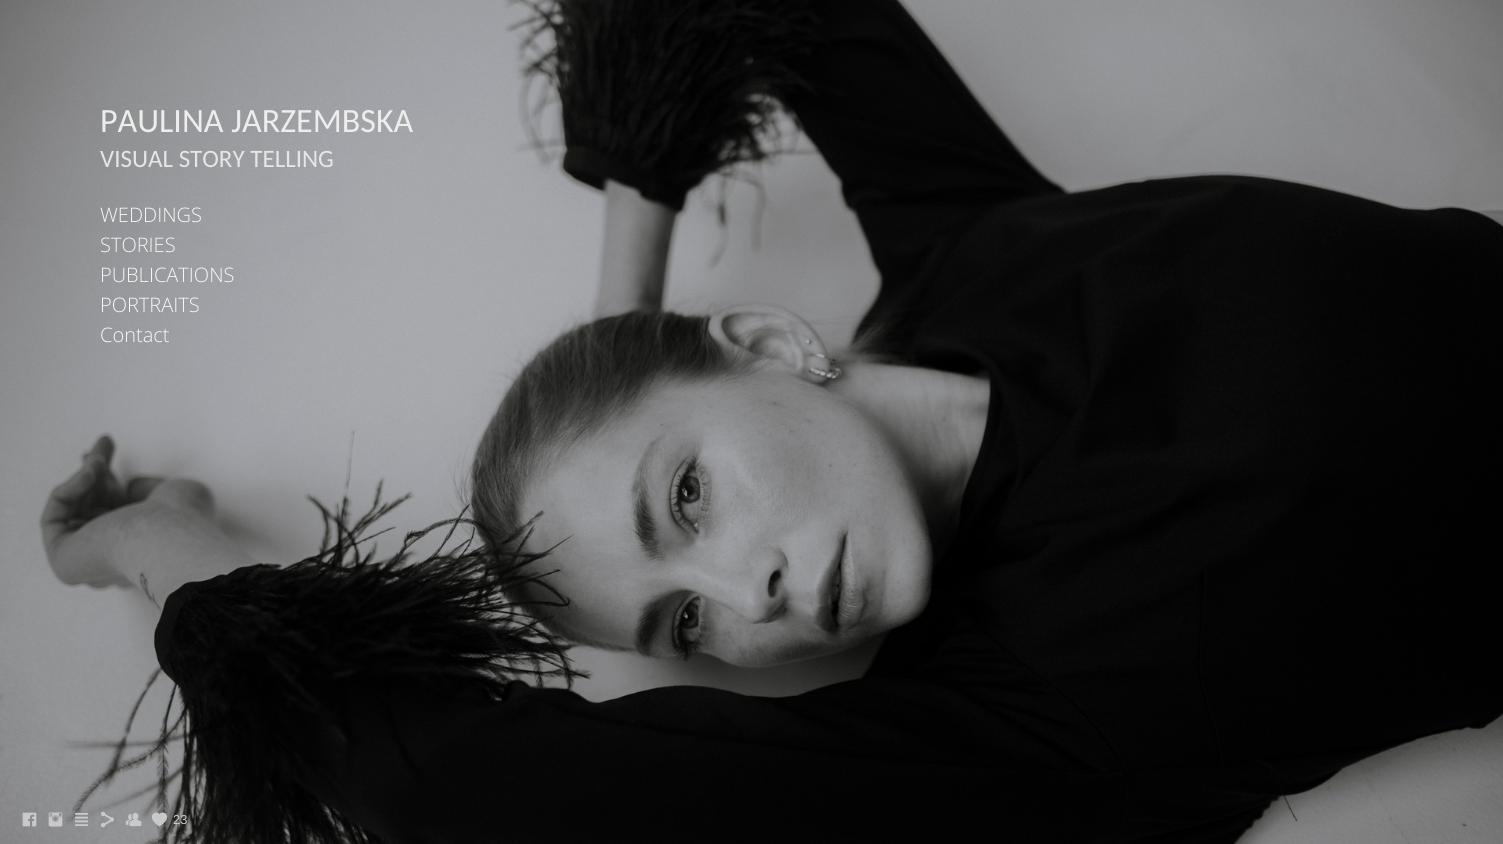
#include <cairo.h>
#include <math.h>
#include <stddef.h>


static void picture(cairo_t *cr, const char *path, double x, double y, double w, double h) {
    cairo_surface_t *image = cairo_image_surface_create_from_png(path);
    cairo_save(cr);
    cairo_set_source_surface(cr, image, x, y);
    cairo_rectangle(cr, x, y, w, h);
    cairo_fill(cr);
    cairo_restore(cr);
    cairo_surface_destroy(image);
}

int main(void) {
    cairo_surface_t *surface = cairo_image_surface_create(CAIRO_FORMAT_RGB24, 1503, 844);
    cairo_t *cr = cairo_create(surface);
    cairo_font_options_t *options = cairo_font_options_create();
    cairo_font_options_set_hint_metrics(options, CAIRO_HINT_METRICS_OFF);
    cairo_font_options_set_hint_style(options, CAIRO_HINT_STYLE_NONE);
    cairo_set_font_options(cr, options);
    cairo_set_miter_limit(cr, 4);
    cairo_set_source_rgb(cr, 1, 1, 1);
    cairo_paint(cr);
    picture(cr, "img1.png", 0, 0, 1503, 844);
    cairo_select_font_face(cr, "Carlito", CAIRO_FONT_SLANT_NORMAL, CAIRO_FONT_WEIGHT_NORMAL);
    cairo_set_font_size(cr, 34);
    cairo_set_source_rgb(cr, 0.929, 0.929, 0.929);
    cairo_move_to(cr, 100, 132);
    cairo_show_text(cr, "PAULINA JARZEMBSKA");
    cairo_set_font_size(cr, 25);
    cairo_set_source_rgb(cr, 0.902, 0.902, 0.902);
    cairo_move_to(cr, 100, 167);
    cairo_show_text(cr, "VISUAL STORY TELLING");
    cairo_select_font_face(cr, "Open Sans Light", CAIRO_FONT_SLANT_NORMAL, CAIRO_FONT_WEIGHT_NORMAL);
    cairo_set_font_size(cr, 20);
    cairo_set_source_rgb(cr, 0.961, 0.961, 0.961);
    cairo_move_to(cr, 100, 222);
    cairo_show_text(cr, "WEDDINGS");
    cairo_move_to(cr, 100, 252);
    cairo_show_text(cr, "STORIES");
    cairo_move_to(cr, 100, 282);
    cairo_show_text(cr, "PUBLICATIONS");
    cairo_move_to(cr, 100, 312);
    cairo_show_text(cr, "PORTRAITS");
    cairo_move_to(cr, 100, 342);
    cairo_show_text(cr, "Contact");
    picture(cr, "img2.png", 22, 812, 15, 15);
    picture(cr, "img3.png", 48, 812, 15, 15);
    picture(cr, "img4.png", 74, 812, 14, 14);
    picture(cr, "img5.png", 101, 811, 14, 17);
    picture(cr, "img6.png", 125, 812, 17, 15);
    picture(cr, "img7.png", 152, 812, 16, 15);
    cairo_select_font_face(cr, "Liberation Sans", CAIRO_FONT_SLANT_NORMAL, CAIRO_FONT_WEIGHT_NORMAL);
    cairo_set_font_size(cr, 13);
    cairo_set_source_rgb(cr, 0.788, 0.788, 0.788);
    cairo_move_to(cr, 173, 824);
    cairo_show_text(cr, "23");
    cairo_surface_write_to_png(surface, "page.png");
    cairo_font_options_destroy(options);
    cairo_destroy(cr);
    cairo_surface_destroy(surface);
    return 0;
}
